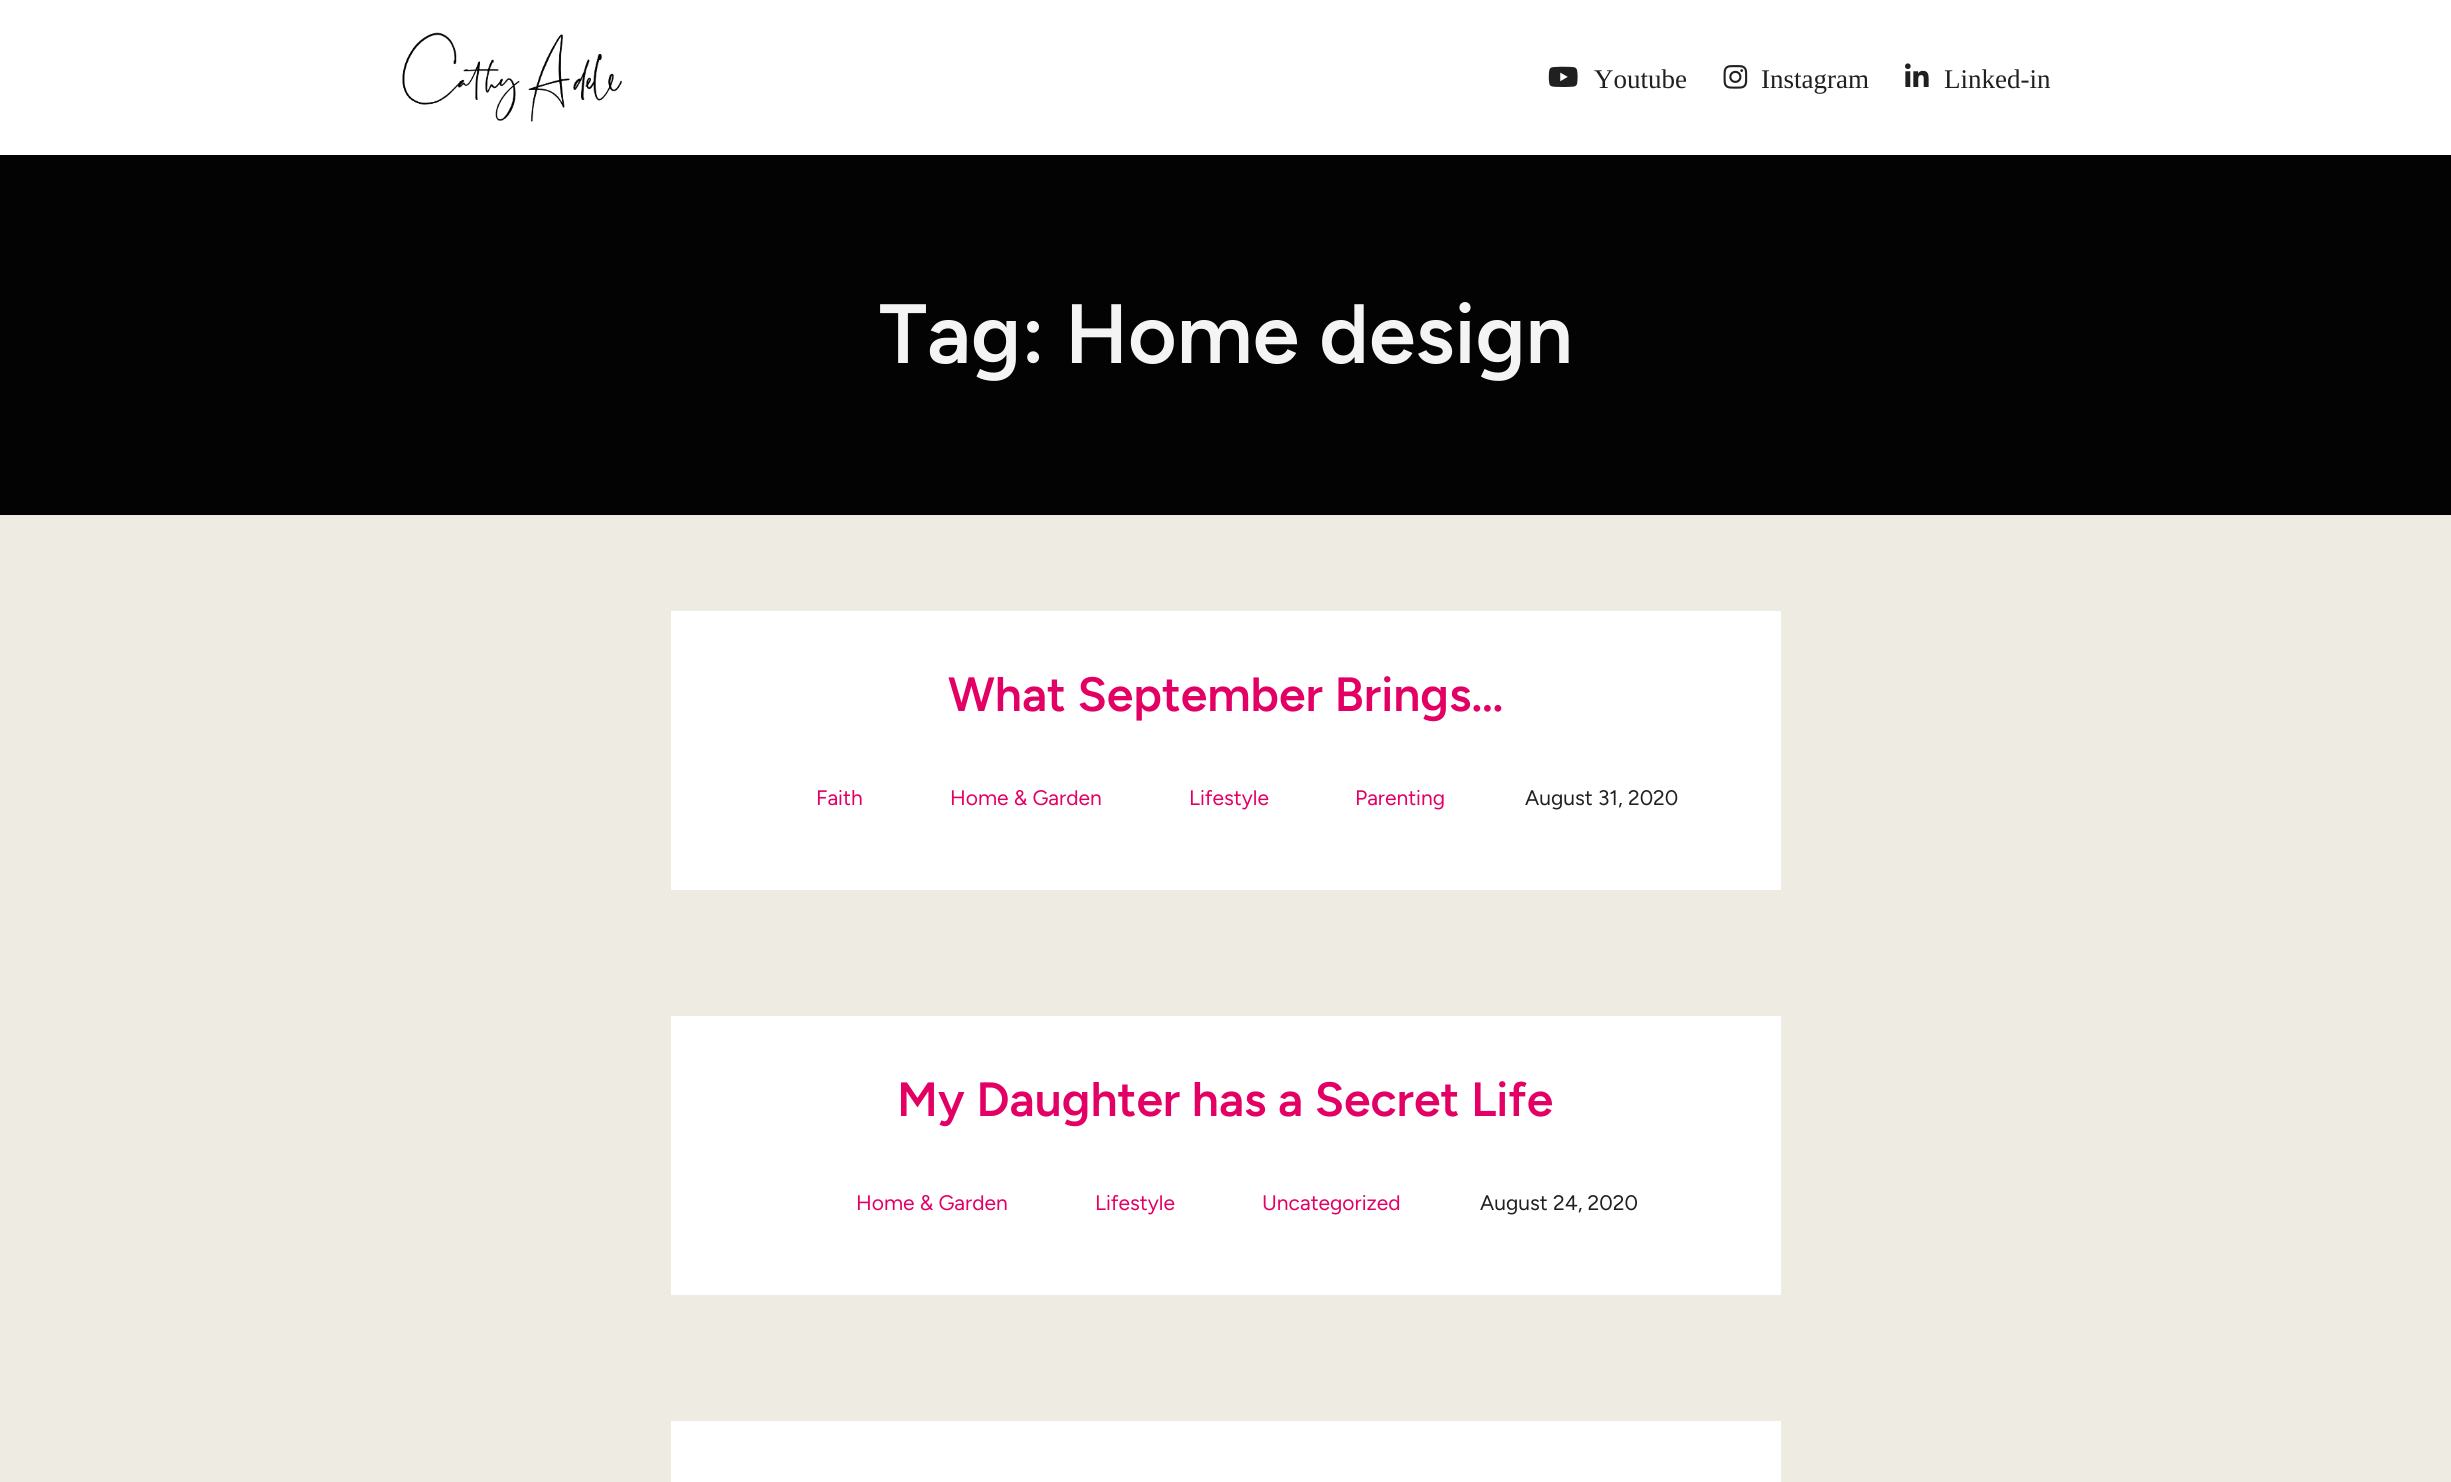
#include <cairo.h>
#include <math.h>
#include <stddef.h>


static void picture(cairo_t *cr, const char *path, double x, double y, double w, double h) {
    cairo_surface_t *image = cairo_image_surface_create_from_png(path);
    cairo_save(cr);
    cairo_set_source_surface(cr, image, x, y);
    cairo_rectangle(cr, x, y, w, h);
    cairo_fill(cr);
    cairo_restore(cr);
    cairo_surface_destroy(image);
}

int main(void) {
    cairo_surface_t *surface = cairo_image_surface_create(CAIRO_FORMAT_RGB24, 2451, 1482);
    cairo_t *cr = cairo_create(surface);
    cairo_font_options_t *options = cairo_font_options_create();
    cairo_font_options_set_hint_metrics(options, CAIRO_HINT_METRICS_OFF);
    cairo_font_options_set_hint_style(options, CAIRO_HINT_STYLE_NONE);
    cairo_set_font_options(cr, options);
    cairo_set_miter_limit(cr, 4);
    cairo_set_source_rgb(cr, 0.933, 0.918, 0.886);
    cairo_paint(cr);
    cairo_set_source_rgb(cr, 1, 1, 1);
    cairo_rectangle(cr, 0, 0, 2451, 155);
    cairo_fill(cr);
    picture(cr, "img1.png", 402, 32, 220, 90);
    picture(cr, "img2.png", 1548, 66, 30, 21);
    cairo_select_font_face(cr, "Liberation Serif", CAIRO_FONT_SLANT_NORMAL, CAIRO_FONT_WEIGHT_NORMAL);
    cairo_set_font_size(cr, 27);
    cairo_set_source_rgb(cr, 0.125, 0.125, 0.125);
    cairo_move_to(cr, 1594, 88);
    cairo_show_text(cr, "Youtube");
    picture(cr, "img3.png", 1723, 65, 25, 24);
    cairo_move_to(cr, 1761, 88);
    cairo_show_text(cr, "Instagram");
    picture(cr, "img4.png", 1905, 63, 24, 24);
    cairo_move_to(cr, 1944, 88);
    cairo_show_text(cr, "Linked-in");
    cairo_set_source_rgb(cr, 0.012, 0.012, 0.012);
    cairo_rectangle(cr, 0, 155, 2451, 360);
    cairo_fill(cr);
    cairo_select_font_face(cr, "Figtree SemiBold", CAIRO_FONT_SLANT_NORMAL, CAIRO_FONT_WEIGHT_NORMAL);
    cairo_set_font_size(cr, 84);
    cairo_set_source_rgb(cr, 0.957, 0.957, 0.957);
    cairo_move_to(cr, 879, 363);
    cairo_show_text(cr, "Tag: Home design");
    cairo_set_source_rgb(cr, 1, 1, 1);
    cairo_rectangle(cr, 671, 611, 1110, 279);
    cairo_fill(cr);
    cairo_set_font_size(cr, 48);
    cairo_set_source_rgb(cr, 0.89, 0, 0.396);
    cairo_move_to(cr, 948, 711);
    cairo_show_text(cr, "What September Brings…");
    cairo_select_font_face(cr, "Figtree", CAIRO_FONT_SLANT_NORMAL, CAIRO_FONT_WEIGHT_NORMAL);
    cairo_set_font_size(cr, 21);
    cairo_move_to(cr, 816, 805);
    cairo_show_text(cr, "Faith");
    cairo_move_to(cr, 950, 805);
    cairo_show_text(cr, "Home & Garden");
    cairo_move_to(cr, 1189, 805);
    cairo_show_text(cr, "Lifestyle");
    cairo_move_to(cr, 1355, 805);
    cairo_show_text(cr, "Parenting");
    cairo_set_source_rgb(cr, 0.125, 0.125, 0.125);
    cairo_move_to(cr, 1525, 805);
    cairo_show_text(cr, "August 31, 2020");
    cairo_set_source_rgb(cr, 1, 1, 1);
    cairo_rectangle(cr, 671, 1016, 1110, 279);
    cairo_fill(cr);
    cairo_select_font_face(cr, "Figtree SemiBold", CAIRO_FONT_SLANT_NORMAL, CAIRO_FONT_WEIGHT_NORMAL);
    cairo_set_font_size(cr, 48);
    cairo_set_source_rgb(cr, 0.89, 0, 0.396);
    cairo_move_to(cr, 897, 1116);
    cairo_show_text(cr, "My Daughter has a Secret Life");
    cairo_select_font_face(cr, "Figtree", CAIRO_FONT_SLANT_NORMAL, CAIRO_FONT_WEIGHT_NORMAL);
    cairo_set_font_size(cr, 21);
    cairo_move_to(cr, 856, 1210);
    cairo_show_text(cr, "Home & Garden");
    cairo_move_to(cr, 1095, 1210);
    cairo_show_text(cr, "Lifestyle");
    cairo_move_to(cr, 1262, 1210);
    cairo_show_text(cr, "Uncategorized");
    cairo_set_source_rgb(cr, 0.125, 0.125, 0.125);
    cairo_move_to(cr, 1480, 1210);
    cairo_show_text(cr, "August 24, 2020");
    cairo_set_source_rgb(cr, 1, 1, 1);
    cairo_rectangle(cr, 671, 1421, 1110, 61);
    cairo_fill(cr);
    cairo_surface_write_to_png(surface, "page.png");
    cairo_font_options_destroy(options);
    cairo_destroy(cr);
    cairo_surface_destroy(surface);
    return 0;
}
